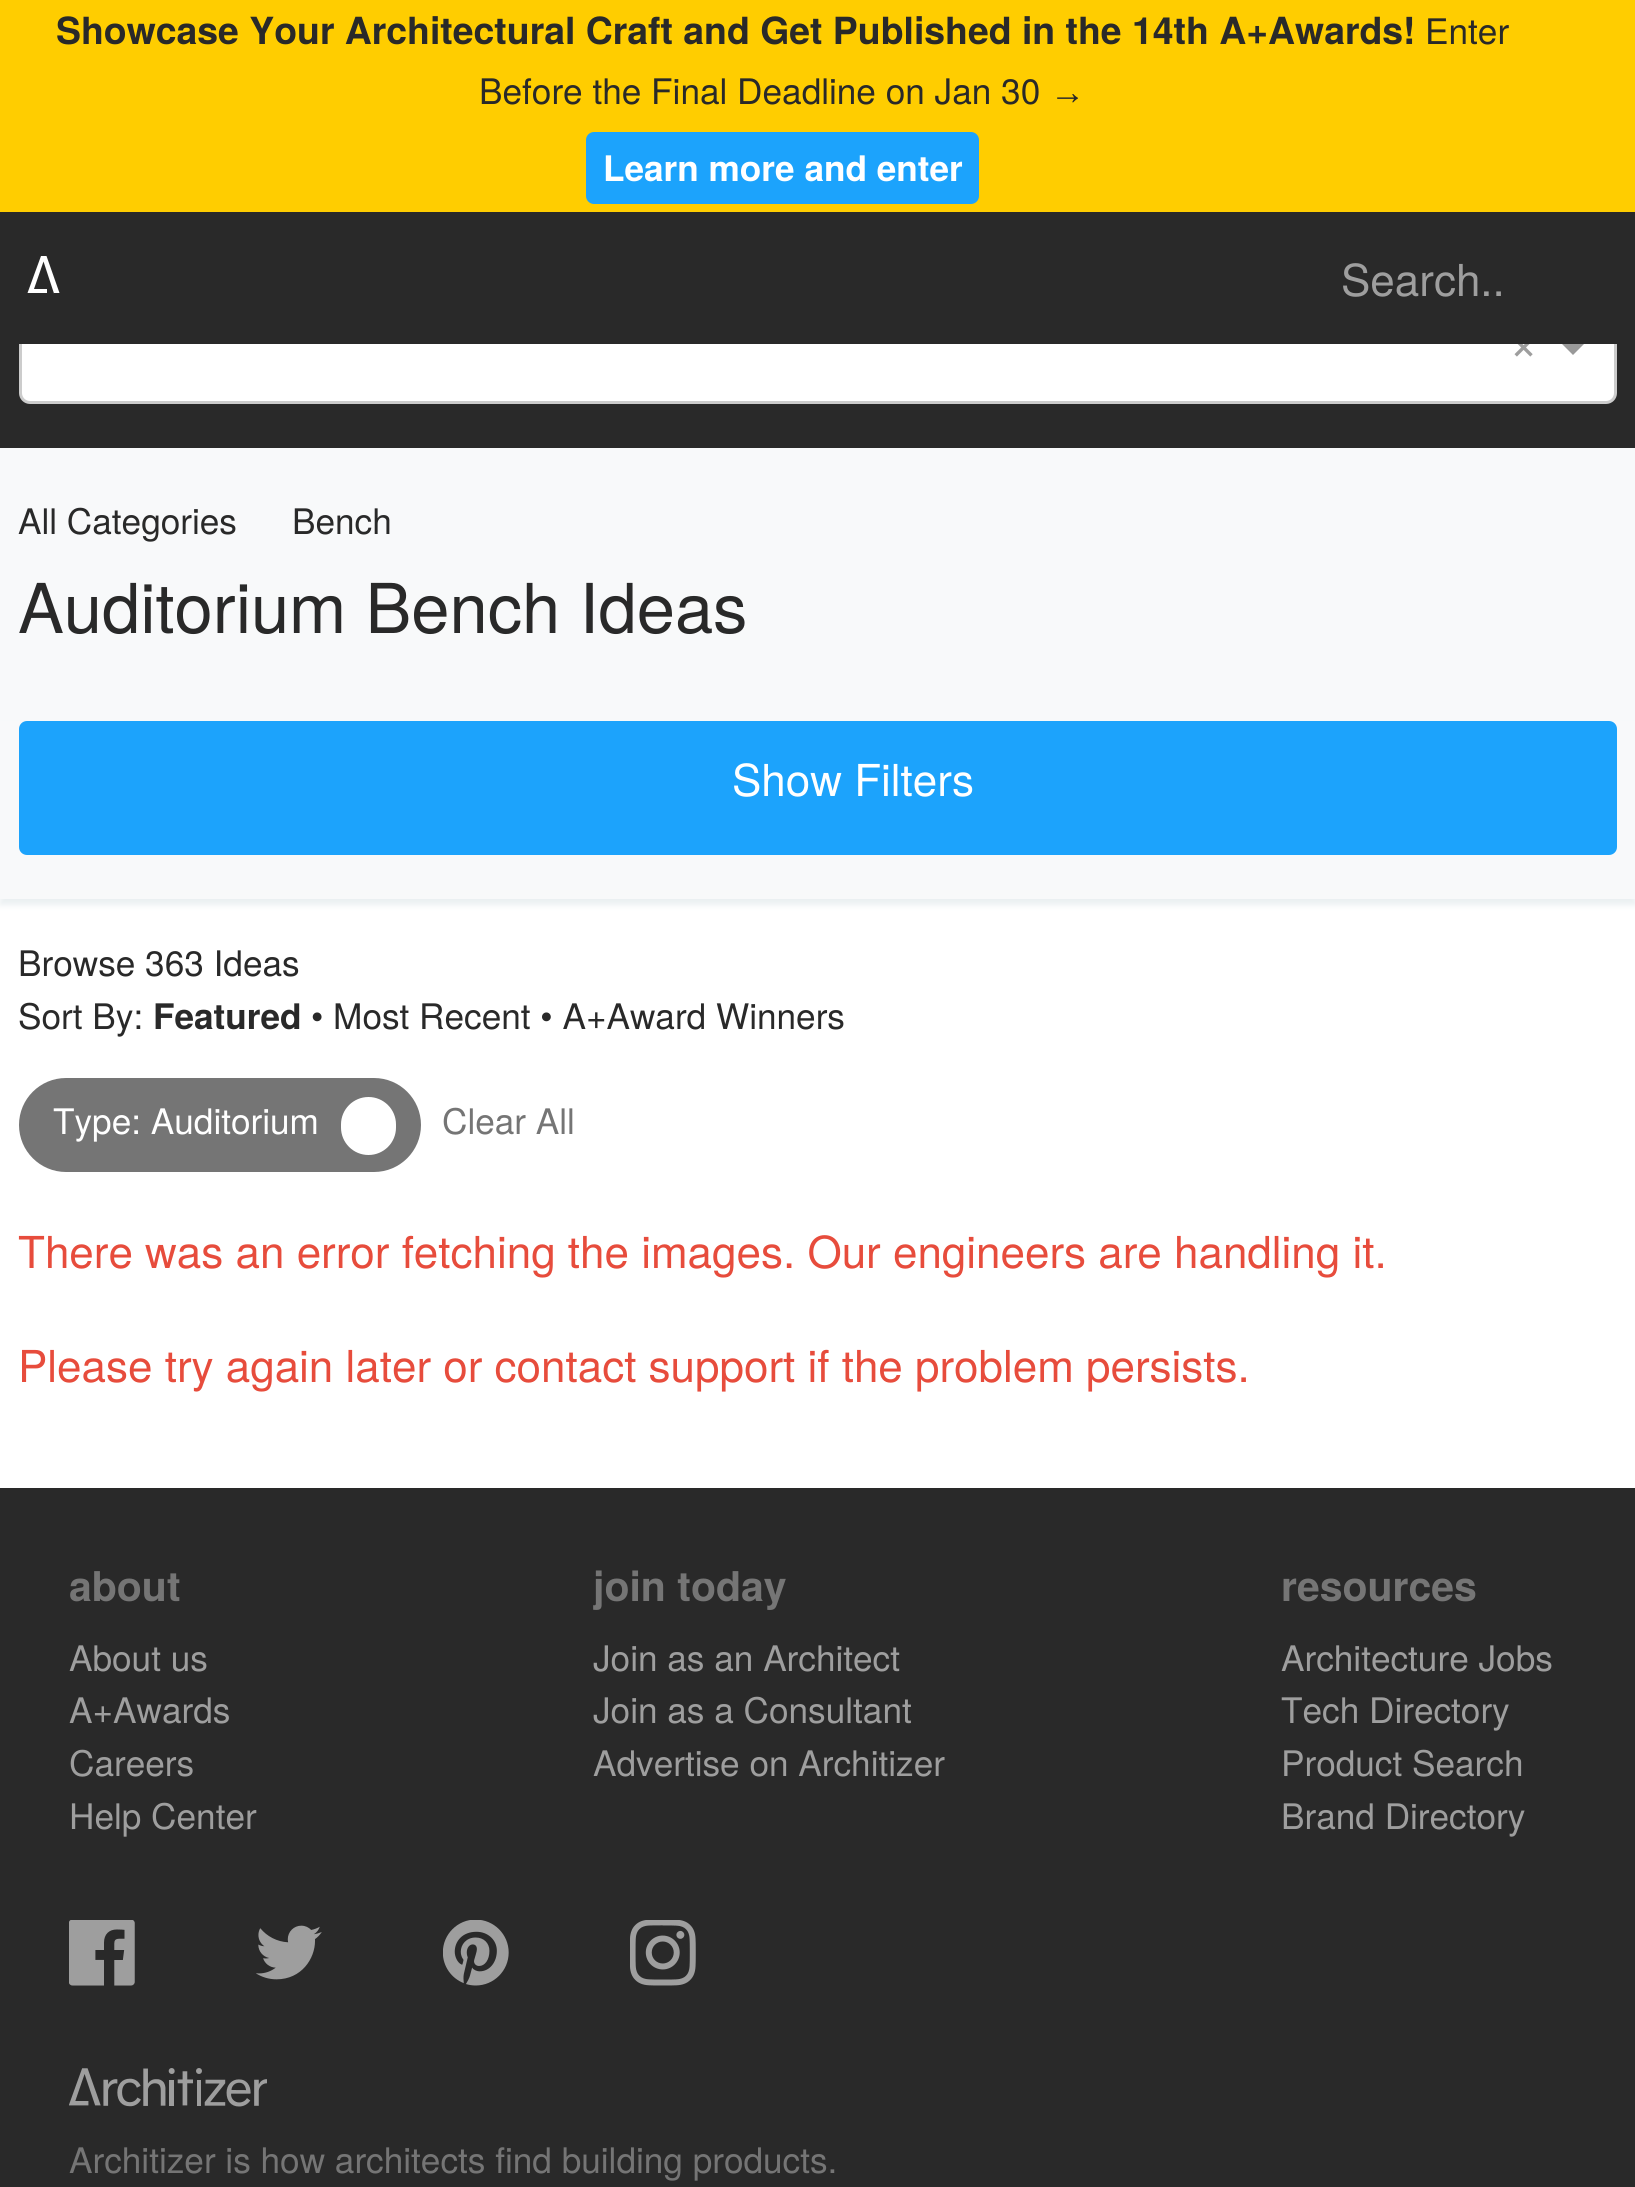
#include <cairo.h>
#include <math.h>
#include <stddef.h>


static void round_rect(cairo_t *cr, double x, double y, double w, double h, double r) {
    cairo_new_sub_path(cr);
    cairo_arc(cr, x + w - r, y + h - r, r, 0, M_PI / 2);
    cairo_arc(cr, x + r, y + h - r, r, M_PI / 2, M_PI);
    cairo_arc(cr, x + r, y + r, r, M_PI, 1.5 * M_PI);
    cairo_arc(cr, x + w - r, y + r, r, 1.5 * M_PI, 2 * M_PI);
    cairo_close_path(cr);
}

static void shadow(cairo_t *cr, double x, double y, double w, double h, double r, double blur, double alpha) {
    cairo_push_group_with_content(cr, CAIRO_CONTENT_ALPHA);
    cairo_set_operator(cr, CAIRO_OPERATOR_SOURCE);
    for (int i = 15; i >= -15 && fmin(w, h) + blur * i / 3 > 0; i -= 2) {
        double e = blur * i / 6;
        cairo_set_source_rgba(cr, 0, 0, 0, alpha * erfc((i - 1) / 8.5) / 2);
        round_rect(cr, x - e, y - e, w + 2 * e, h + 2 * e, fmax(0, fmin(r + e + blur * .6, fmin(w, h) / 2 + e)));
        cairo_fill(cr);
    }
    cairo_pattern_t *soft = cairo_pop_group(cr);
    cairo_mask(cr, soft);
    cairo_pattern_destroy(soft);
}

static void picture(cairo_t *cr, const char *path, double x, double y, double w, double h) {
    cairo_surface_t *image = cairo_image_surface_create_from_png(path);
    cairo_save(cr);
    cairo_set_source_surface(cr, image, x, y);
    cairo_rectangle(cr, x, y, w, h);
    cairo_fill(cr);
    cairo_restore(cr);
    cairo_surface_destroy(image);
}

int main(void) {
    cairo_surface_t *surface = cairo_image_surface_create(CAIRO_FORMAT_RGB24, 1635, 2187);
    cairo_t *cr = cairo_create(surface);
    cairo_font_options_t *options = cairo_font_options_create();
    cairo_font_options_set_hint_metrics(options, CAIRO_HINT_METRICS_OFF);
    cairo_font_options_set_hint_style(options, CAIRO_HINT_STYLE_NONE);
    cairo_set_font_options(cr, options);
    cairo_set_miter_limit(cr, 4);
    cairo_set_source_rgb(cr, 1, 1, 1);
    cairo_paint(cr);
    cairo_set_source_rgb(cr, 1, 0.804, 0);
    cairo_rectangle(cr, 0, 0, 1635, 212);
    cairo_fill(cr);
    cairo_select_font_face(cr, "TeX Gyre Heros", CAIRO_FONT_SLANT_NORMAL, CAIRO_FONT_WEIGHT_BOLD);
    cairo_set_font_size(cr, 37.4);
    cairo_set_source_rgb(cr, 0.161, 0.161, 0.161);
    cairo_move_to(cr, 56, 44);
    cairo_show_text(cr, "Showcase Your Architectural Craft and Get Published in the 14th A+Awards!");
    cairo_select_font_face(cr, "TeX Gyre Heros", CAIRO_FONT_SLANT_NORMAL, CAIRO_FONT_WEIGHT_NORMAL);
    cairo_set_font_size(cr, 35.2);
    cairo_move_to(cr, 1425, 44);
    cairo_show_text(cr, "Enter");
    cairo_move_to(cr, 479, 104);
    cairo_show_text(cr, "Before the Final Deadline on Jan 30");
    cairo_select_font_face(cr, "Liberation Sans", CAIRO_FONT_SLANT_NORMAL, CAIRO_FONT_WEIGHT_NORMAL);
    cairo_move_to(cr, 1050, 104);
    cairo_show_text(cr, "→");
    cairo_set_source_rgb(cr, 0.11, 0.639, 0.988);
    round_rect(cr, 586, 132, 393, 72, 8);
    cairo_fill(cr);
    cairo_select_font_face(cr, "TeX Gyre Heros", CAIRO_FONT_SLANT_NORMAL, CAIRO_FONT_WEIGHT_BOLD);
    cairo_set_source_rgb(cr, 1, 1, 1);
    cairo_move_to(cr, 603, 181);
    cairo_show_text(cr, "Learn more and enter");
    cairo_set_source_rgb(cr, 0.161, 0.161, 0.161);
    cairo_rectangle(cr, 0, 344, 1635, 104);
    cairo_fill(cr);
    cairo_set_source_rgb(cr, 1, 1, 1);
    round_rect(cr, 20.5, 284.5, 1595, 118, 9.5);
    cairo_fill_preserve(cr);
    cairo_set_source_rgb(cr, 0.8, 0.8, 0.8);
    cairo_set_line_width(cr, 3);
    cairo_stroke(cr);
    cairo_select_font_face(cr, "TeX Gyre Heros", CAIRO_FONT_SLANT_NORMAL, CAIRO_FONT_WEIGHT_NORMAL);
    cairo_set_font_size(cr, 50);
    cairo_set_source_rgb(cr, 0.62, 0.62, 0.62);
    cairo_move_to(cr, 1509, 360);
    cairo_show_text(cr, "×");
    cairo_set_source_rgb(cr, 0.6, 0.6, 0.6);
    cairo_new_path(cr);
    cairo_move_to(cr, 1559, 341);
    cairo_line_to(cr, 1587, 341);
    cairo_line_to(cr, 1573, 355);
    cairo_close_path(cr);
    cairo_fill(cr);
    cairo_set_source_rgb(cr, 0.161, 0.161, 0.161);
    cairo_rectangle(cr, 0, 212, 1635, 132);
    cairo_fill(cr);
    cairo_set_source_rgb(cr, 1, 1, 1);
    cairo_new_path(cr);
    cairo_move_to(cr, 54, 293.5);
    cairo_line_to(cr, 43.5, 261.5);
    cairo_line_to(cr, 34, 289);
    cairo_line_to(cr, 47, 289);
    cairo_line_to(cr, 47, 293);
    cairo_line_to(cr, 27.5, 293);
    cairo_line_to(cr, 41, 256);
    cairo_line_to(cr, 46.5, 256);
    cairo_line_to(cr, 59.5, 293);
    cairo_line_to(cr, 54, 293);
    cairo_close_path(cr);
    cairo_fill(cr);
    cairo_set_font_size(cr, 44);
    cairo_set_source_rgb(cr, 0.62, 0.62, 0.62);
    cairo_move_to(cr, 1341, 296);
    cairo_show_text(cr, "Search..");
    cairo_set_source_rgb(cr, 0.969, 0.976, 0.98);
    cairo_rectangle(cr, 0, 448, 1635, 273);
    cairo_fill(cr);
    cairo_set_font_size(cr, 35.2);
    cairo_set_source_rgb(cr, 0.161, 0.161, 0.161);
    cairo_move_to(cr, 18, 534);
    cairo_show_text(cr, "All Categories");
    cairo_move_to(cr, 292, 534);
    cairo_show_text(cr, "Bench");
    cairo_set_font_size(cr, 68.75);
    cairo_move_to(cr, 18, 633);
    cairo_show_text(cr, "Auditorium Bench Ideas");
    cairo_set_source_rgb(cr, 0.906, 0.929, 0.937);
    shadow(cr, 0, 726, 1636, 179, 0, 3, 0.85);
    cairo_set_source_rgb(cr, 0.969, 0.976, 0.98);
    cairo_rectangle(cr, 0, 721, 1635, 178);
    cairo_fill(cr);
    cairo_set_source_rgb(cr, 0.11, 0.639, 0.988);
    round_rect(cr, 19, 721, 1598, 134, 8);
    cairo_fill(cr);
    cairo_set_font_size(cr, 44);
    cairo_set_source_rgb(cr, 1, 1, 1);
    cairo_move_to(cr, 732, 796);
    cairo_show_text(cr, "Show Filters");
    cairo_set_font_size(cr, 35.2);
    cairo_set_source_rgb(cr, 0.161, 0.161, 0.161);
    cairo_move_to(cr, 18, 976);
    cairo_show_text(cr, "Browse 363 Ideas");
    cairo_move_to(cr, 18, 1029);
    cairo_show_text(cr, "Sort By:");
    cairo_select_font_face(cr, "TeX Gyre Heros", CAIRO_FONT_SLANT_NORMAL, CAIRO_FONT_WEIGHT_BOLD);
    cairo_move_to(cr, 153, 1029);
    cairo_show_text(cr, "Featured");
    cairo_select_font_face(cr, "TeX Gyre Heros", CAIRO_FONT_SLANT_NORMAL, CAIRO_FONT_WEIGHT_NORMAL);
    cairo_move_to(cr, 311, 1029);
    cairo_show_text(cr, "• Most Recent • A+Award Winners");
    cairo_set_source_rgb(cr, 0.459, 0.459, 0.459);
    round_rect(cr, 19, 1078, 402, 94, 47);
    cairo_fill(cr);
    cairo_set_source_rgb(cr, 1, 1, 1);
    cairo_move_to(cr, 53, 1134);
    cairo_show_text(cr, "Type: Auditorium");
    round_rect(cr, 341, 1097, 55, 58, 27.5);
    cairo_fill(cr);
    cairo_set_source_rgb(cr, 0.459, 0.459, 0.459);
    cairo_move_to(cr, 442, 1134);
    cairo_show_text(cr, "Clear All");
    cairo_set_font_size(cr, 44);
    cairo_set_source_rgb(cr, 0.906, 0.298, 0.235);
    cairo_move_to(cr, 18, 1268);
    cairo_show_text(cr, "There was an error fetching the images. Our engineers are handling it.");
    cairo_move_to(cr, 18, 1382);
    cairo_show_text(cr, "Please try again later or contact support if the problem persists.");
    cairo_set_source_rgb(cr, 0.161, 0.161, 0.161);
    cairo_rectangle(cr, 0, 1488, 1635, 699);
    cairo_fill(cr);
    cairo_select_font_face(cr, "TeX Gyre Heros", CAIRO_FONT_SLANT_NORMAL, CAIRO_FONT_WEIGHT_BOLD);
    cairo_set_font_size(cr, 41);
    cairo_set_source_rgb(cr, 0.459, 0.459, 0.459);
    cairo_move_to(cr, 69, 1601);
    cairo_show_text(cr, "about");
    cairo_select_font_face(cr, "TeX Gyre Heros", CAIRO_FONT_SLANT_NORMAL, CAIRO_FONT_WEIGHT_NORMAL);
    cairo_set_font_size(cr, 35.2);
    cairo_set_source_rgb(cr, 0.62, 0.62, 0.62);
    cairo_move_to(cr, 69, 1671);
    cairo_show_text(cr, "About us");
    cairo_move_to(cr, 69, 1723);
    cairo_show_text(cr, "A+Awards");
    cairo_move_to(cr, 69, 1776);
    cairo_show_text(cr, "Careers");
    cairo_move_to(cr, 69, 1829);
    cairo_show_text(cr, "Help Center");
    cairo_select_font_face(cr, "TeX Gyre Heros", CAIRO_FONT_SLANT_NORMAL, CAIRO_FONT_WEIGHT_BOLD);
    cairo_set_font_size(cr, 41);
    cairo_set_source_rgb(cr, 0.459, 0.459, 0.459);
    cairo_move_to(cr, 593, 1601);
    cairo_show_text(cr, "join today");
    cairo_select_font_face(cr, "TeX Gyre Heros", CAIRO_FONT_SLANT_NORMAL, CAIRO_FONT_WEIGHT_NORMAL);
    cairo_set_font_size(cr, 35.2);
    cairo_set_source_rgb(cr, 0.62, 0.62, 0.62);
    cairo_move_to(cr, 593, 1671);
    cairo_show_text(cr, "Join as an Architect");
    cairo_move_to(cr, 593, 1723);
    cairo_show_text(cr, "Join as a Consultant");
    cairo_move_to(cr, 593, 1776);
    cairo_show_text(cr, "Advertise on Architizer");
    cairo_select_font_face(cr, "TeX Gyre Heros", CAIRO_FONT_SLANT_NORMAL, CAIRO_FONT_WEIGHT_BOLD);
    cairo_set_font_size(cr, 41);
    cairo_set_source_rgb(cr, 0.459, 0.459, 0.459);
    cairo_move_to(cr, 1281, 1601);
    cairo_show_text(cr, "resources");
    cairo_select_font_face(cr, "TeX Gyre Heros", CAIRO_FONT_SLANT_NORMAL, CAIRO_FONT_WEIGHT_NORMAL);
    cairo_set_font_size(cr, 35.2);
    cairo_set_source_rgb(cr, 0.62, 0.62, 0.62);
    cairo_move_to(cr, 1281, 1671);
    cairo_show_text(cr, "Architecture Jobs");
    cairo_move_to(cr, 1281, 1723);
    cairo_show_text(cr, "Tech Directory");
    cairo_move_to(cr, 1281, 1776);
    cairo_show_text(cr, "Product Search");
    cairo_move_to(cr, 1281, 1829);
    cairo_show_text(cr, "Brand Directory");
    picture(cr, "img1.png", 69, 1920, 66, 66);
    picture(cr, "img2.png", 256, 1925, 66, 55);
    picture(cr, "img3.png", 443, 1920, 66, 66);
    picture(cr, "img4.png", 630, 1920, 66, 66);
    picture(cr, "img5.png", 69, 2068, 198, 39);
    cairo_set_source_rgb(cr, 0.459, 0.459, 0.459);
    cairo_move_to(cr, 69, 2173);
    cairo_show_text(cr, "Architizer is how architects find building products.");
    cairo_surface_write_to_png(surface, "page.png");
    cairo_font_options_destroy(options);
    cairo_destroy(cr);
    cairo_surface_destroy(surface);
    return 0;
}
